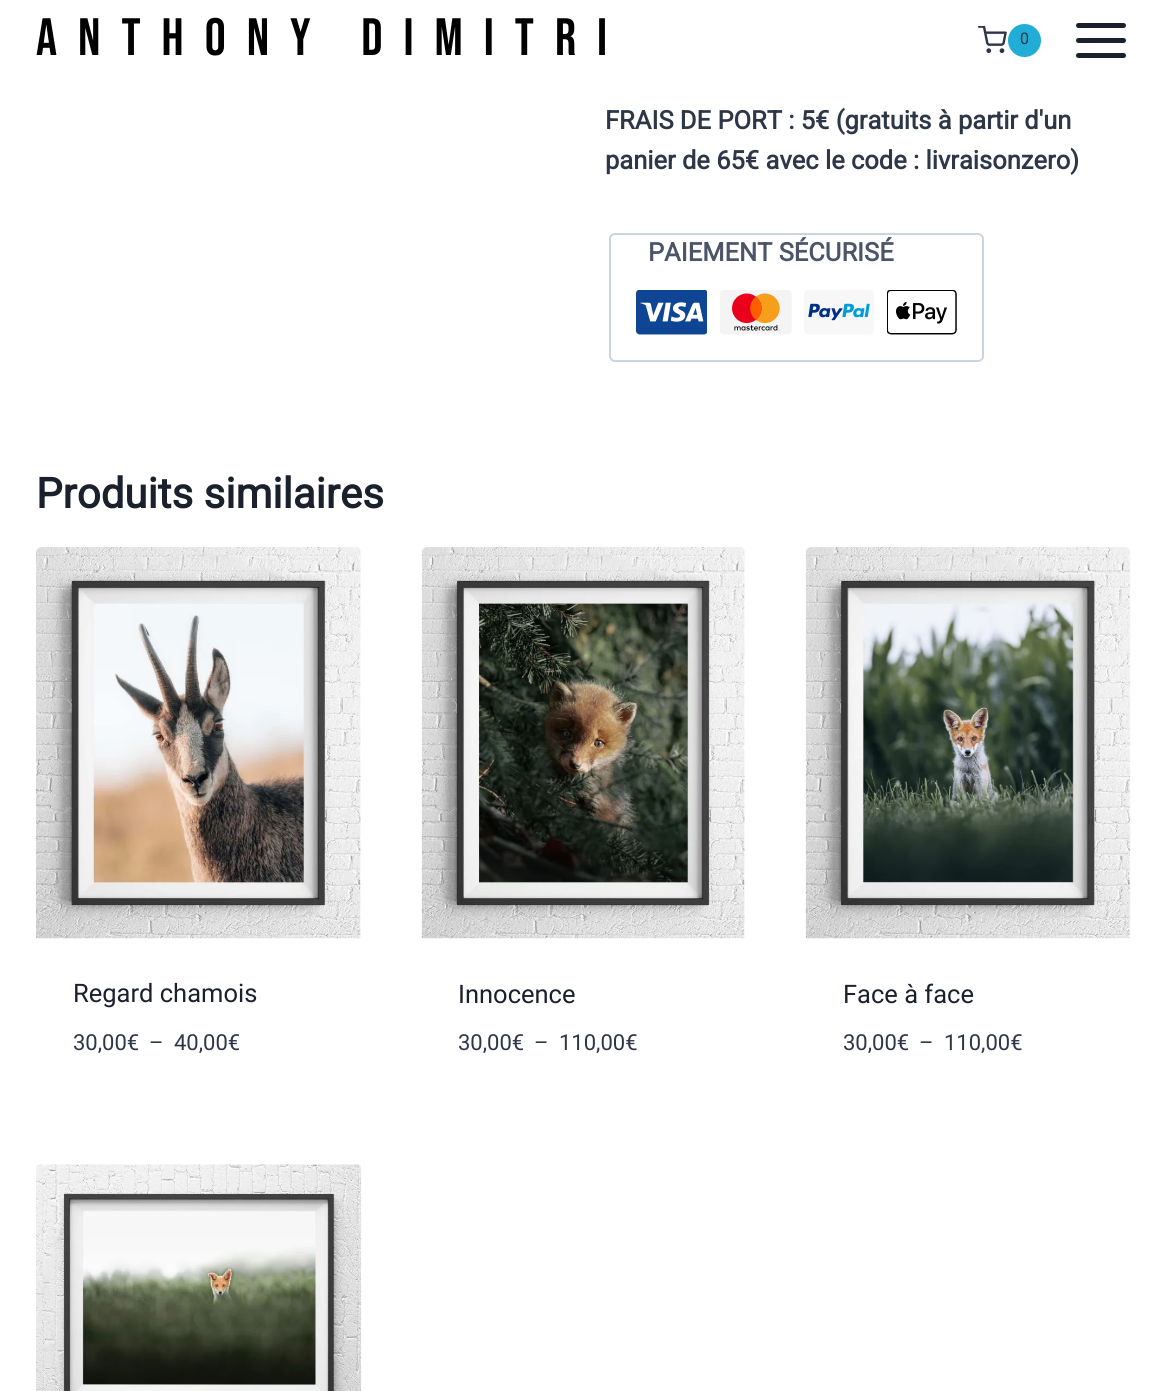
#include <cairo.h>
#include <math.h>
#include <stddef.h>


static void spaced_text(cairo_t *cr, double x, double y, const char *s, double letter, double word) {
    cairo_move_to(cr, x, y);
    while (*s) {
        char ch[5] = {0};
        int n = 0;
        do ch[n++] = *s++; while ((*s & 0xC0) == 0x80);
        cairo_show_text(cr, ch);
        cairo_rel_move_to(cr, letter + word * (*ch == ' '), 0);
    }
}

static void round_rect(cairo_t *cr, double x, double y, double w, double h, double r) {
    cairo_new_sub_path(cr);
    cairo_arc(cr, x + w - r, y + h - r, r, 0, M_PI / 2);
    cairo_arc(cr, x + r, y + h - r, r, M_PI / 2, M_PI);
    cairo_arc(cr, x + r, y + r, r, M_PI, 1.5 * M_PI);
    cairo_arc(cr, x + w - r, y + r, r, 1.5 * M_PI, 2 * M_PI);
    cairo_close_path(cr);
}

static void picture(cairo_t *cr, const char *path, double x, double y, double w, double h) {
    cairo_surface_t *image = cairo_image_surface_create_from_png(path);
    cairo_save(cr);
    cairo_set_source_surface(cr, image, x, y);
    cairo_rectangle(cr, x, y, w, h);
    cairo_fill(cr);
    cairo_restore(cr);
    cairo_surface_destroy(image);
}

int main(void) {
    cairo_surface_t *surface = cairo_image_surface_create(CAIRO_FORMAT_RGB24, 1167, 1391);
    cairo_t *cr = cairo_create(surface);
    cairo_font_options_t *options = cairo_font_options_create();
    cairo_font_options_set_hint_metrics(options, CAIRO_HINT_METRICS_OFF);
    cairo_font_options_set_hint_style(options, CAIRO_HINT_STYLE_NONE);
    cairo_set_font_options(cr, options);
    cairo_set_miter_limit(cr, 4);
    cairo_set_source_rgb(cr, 1, 1, 1);
    cairo_paint(cr);
    cairo_select_font_face(cr, "Bebas Neue", CAIRO_FONT_SLANT_NORMAL, CAIRO_FONT_WEIGHT_NORMAL);
    cairo_set_font_size(cr, 52.5);
    cairo_set_source_rgb(cr, 0, 0, 0);
    spaced_text(cr, 36, 55, "Anthony DIMITRI", 21, 0);
    picture(cr, "img1.png", 978, 26, 29, 28);
    cairo_set_source_rgb(cr, 0.129, 0.678, 0.839);
    cairo_arc(cr, 1024.5, 40.5, 16.5, 0, 2 * M_PI);
    cairo_fill(cr);
    cairo_select_font_face(cr, "Roboto", CAIRO_FONT_SLANT_NORMAL, CAIRO_FONT_WEIGHT_NORMAL);
    cairo_set_font_size(cr, 16);
    cairo_set_source_rgb(cr, 0.176, 0.216, 0.282);
    cairo_move_to(cr, 1020, 44);
    cairo_show_text(cr, "0");
    picture(cr, "img2.png", 1076, 23, 50, 35);
    cairo_select_font_face(cr, "Roboto", CAIRO_FONT_SLANT_NORMAL, CAIRO_FONT_WEIGHT_BOLD);
    cairo_set_font_size(cr, 25.5);
    cairo_move_to(cr, 605, 129);
    cairo_show_text(cr, "FRAIS DE PORT : 5€ (gratuits à partir d'un");
    cairo_move_to(cr, 605, 169);
    cairo_show_text(cr, "panier de 65€ avec le code : livraisonzero)");
    round_rect(cr, 610, 234, 373, 127, 5);
    cairo_set_source_rgb(cr, 0.796, 0.835, 0.878);
    cairo_stroke(cr);
    cairo_set_source_rgb(cr, 0.29, 0.333, 0.408);
    cairo_move_to(cr, 648, 261);
    cairo_show_text(cr, "PAIEMENT SÉCURISÉ");
    picture(cr, "img3.png", 636, 290, 71, 45);
    picture(cr, "img4.png", 720, 290, 72, 45);
    picture(cr, "img5.png", 804, 290, 70, 45);
    picture(cr, "img6.png", 887, 290, 70, 45);
    cairo_set_font_size(cr, 42);
    cairo_set_source_rgb(cr, 0.102, 0.125, 0.173);
    cairo_move_to(cr, 36, 508);
    cairo_show_text(cr, "Produits similaires");
    picture(cr, "img7.png", 36, 547, 325, 392);
    cairo_select_font_face(cr, "Roboto", CAIRO_FONT_SLANT_NORMAL, CAIRO_FONT_WEIGHT_NORMAL);
    cairo_set_font_size(cr, 25.5);
    cairo_move_to(cr, 73, 1002);
    cairo_show_text(cr, "Regard chamois");
    cairo_set_font_size(cr, 22);
    cairo_set_source_rgb(cr, 0.176, 0.216, 0.282);
    cairo_move_to(cr, 73, 1050);
    cairo_show_text(cr, "30,00€");
    cairo_move_to(cr, 149, 1050);
    cairo_show_text(cr, "–");
    cairo_move_to(cr, 174, 1050);
    cairo_show_text(cr, "40,00€");
    picture(cr, "img8.png", 421, 547, 324, 392);
    cairo_set_font_size(cr, 25.5);
    cairo_set_source_rgb(cr, 0.102, 0.125, 0.173);
    cairo_move_to(cr, 458, 1003);
    cairo_show_text(cr, "Innocence");
    cairo_set_font_size(cr, 22);
    cairo_set_source_rgb(cr, 0.176, 0.216, 0.282);
    cairo_move_to(cr, 458, 1050);
    cairo_show_text(cr, "30,00€");
    cairo_move_to(cr, 534, 1050);
    cairo_show_text(cr, "–");
    cairo_move_to(cr, 559, 1050);
    cairo_show_text(cr, "110,00€");
    picture(cr, "img9.png", 805, 547, 326, 392);
    cairo_set_font_size(cr, 25.5);
    cairo_set_source_rgb(cr, 0.102, 0.125, 0.173);
    cairo_move_to(cr, 843, 1003);
    cairo_show_text(cr, "Face à face");
    cairo_set_font_size(cr, 22);
    cairo_set_source_rgb(cr, 0.176, 0.216, 0.282);
    cairo_move_to(cr, 843, 1050);
    cairo_show_text(cr, "30,00€");
    cairo_move_to(cr, 919, 1050);
    cairo_show_text(cr, "–");
    cairo_move_to(cr, 944, 1050);
    cairo_show_text(cr, "110,00€");
    picture(cr, "img10.png", 36, 1164, 326, 227);
    cairo_surface_write_to_png(surface, "page.png");
    cairo_font_options_destroy(options);
    cairo_destroy(cr);
    cairo_surface_destroy(surface);
    return 0;
}
